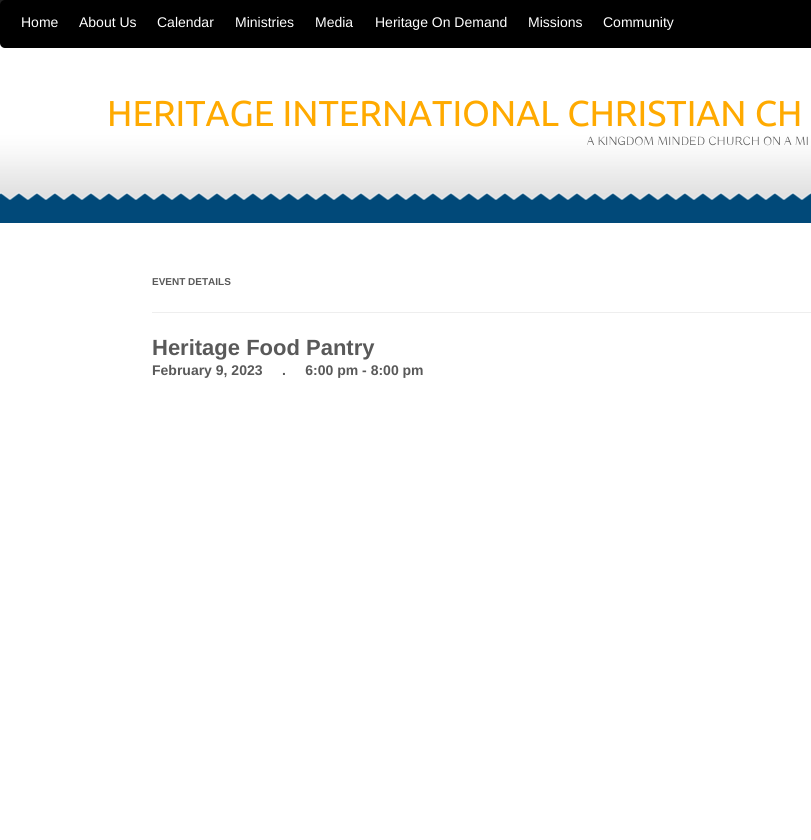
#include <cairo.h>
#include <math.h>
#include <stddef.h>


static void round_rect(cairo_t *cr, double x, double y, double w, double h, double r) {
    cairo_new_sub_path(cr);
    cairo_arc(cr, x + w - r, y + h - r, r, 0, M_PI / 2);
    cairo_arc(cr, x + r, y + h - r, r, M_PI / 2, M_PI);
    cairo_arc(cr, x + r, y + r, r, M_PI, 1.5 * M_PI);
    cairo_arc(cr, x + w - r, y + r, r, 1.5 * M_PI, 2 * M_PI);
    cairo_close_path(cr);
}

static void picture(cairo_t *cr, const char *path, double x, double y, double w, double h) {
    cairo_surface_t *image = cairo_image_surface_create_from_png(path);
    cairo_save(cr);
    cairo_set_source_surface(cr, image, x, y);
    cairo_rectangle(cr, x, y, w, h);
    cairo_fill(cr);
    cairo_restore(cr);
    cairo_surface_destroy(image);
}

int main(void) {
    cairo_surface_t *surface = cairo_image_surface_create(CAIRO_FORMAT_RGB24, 811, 840);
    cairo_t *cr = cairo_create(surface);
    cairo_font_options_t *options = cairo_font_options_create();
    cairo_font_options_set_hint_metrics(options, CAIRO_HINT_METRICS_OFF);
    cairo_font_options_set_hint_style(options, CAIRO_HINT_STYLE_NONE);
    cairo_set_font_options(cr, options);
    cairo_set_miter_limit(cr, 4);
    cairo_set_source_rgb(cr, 1, 1, 1);
    cairo_paint(cr);
    picture(cr, "img1.png", 0, 0, 811, 223);
    cairo_set_source_rgb(cr, 0, 0, 0);
    round_rect(cr, 0, 0, 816, 48, 5);
    cairo_fill(cr);
    cairo_select_font_face(cr, "Liberation Sans", CAIRO_FONT_SLANT_NORMAL, CAIRO_FONT_WEIGHT_NORMAL);
    cairo_set_font_size(cr, 14);
    cairo_set_source_rgb(cr, 1, 1, 1);
    cairo_move_to(cr, 21, 27);
    cairo_show_text(cr, "Home");
    cairo_move_to(cr, 79, 27);
    cairo_show_text(cr, "About Us");
    cairo_move_to(cr, 157, 27);
    cairo_show_text(cr, "Calendar");
    cairo_move_to(cr, 235, 27);
    cairo_show_text(cr, "Ministries");
    cairo_move_to(cr, 315, 27);
    cairo_show_text(cr, "Media");
    cairo_move_to(cr, 375, 27);
    cairo_show_text(cr, "Heritage On Demand");
    cairo_move_to(cr, 528, 27);
    cairo_show_text(cr, "Missions");
    cairo_move_to(cr, 603, 27);
    cairo_show_text(cr, "Community");
    cairo_select_font_face(cr, "Ubuntu", CAIRO_FONT_SLANT_NORMAL, CAIRO_FONT_WEIGHT_NORMAL);
    cairo_set_font_size(cr, 36);
    cairo_set_source_rgb(cr, 1, 0.667, 0);
    cairo_move_to(cr, 107, 126);
    cairo_show_text(cr, "HERITAGE INTERNATIONAL CHRISTIAN CH");
    cairo_select_font_face(cr, "Buda", CAIRO_FONT_SLANT_NORMAL, CAIRO_FONT_WEIGHT_NORMAL);
    cairo_set_font_size(cr, 12);
    cairo_set_source_rgb(cr, 0.349, 0.349, 0.349);
    cairo_move_to(cr, 587, 145);
    cairo_show_text(cr, "A KINGDOM MINDED CHURCH ON A MI");
    cairo_select_font_face(cr, "Liberation Sans", CAIRO_FONT_SLANT_NORMAL, CAIRO_FONT_WEIGHT_BOLD);
    cairo_set_font_size(cr, 10);
    cairo_move_to(cr, 152, 285);
    cairo_show_text(cr, "EVENT DETAILS");
    cairo_set_source_rgb(cr, 0.933, 0.933, 0.933);
    cairo_rectangle(cr, 152, 312, 659, 1);
    cairo_fill(cr);
    cairo_set_font_size(cr, 22);
    cairo_set_source_rgb(cr, 0.349, 0.349, 0.349);
    cairo_move_to(cr, 152, 355);
    cairo_show_text(cr, "Heritage Food Pantry");
    cairo_set_font_size(cr, 14);
    cairo_move_to(cr, 152, 375);
    cairo_show_text(cr, "February 9, 2023     .     6:00 pm - 8:00 pm");
    cairo_surface_write_to_png(surface, "page.png");
    cairo_font_options_destroy(options);
    cairo_destroy(cr);
    cairo_surface_destroy(surface);
    return 0;
}
